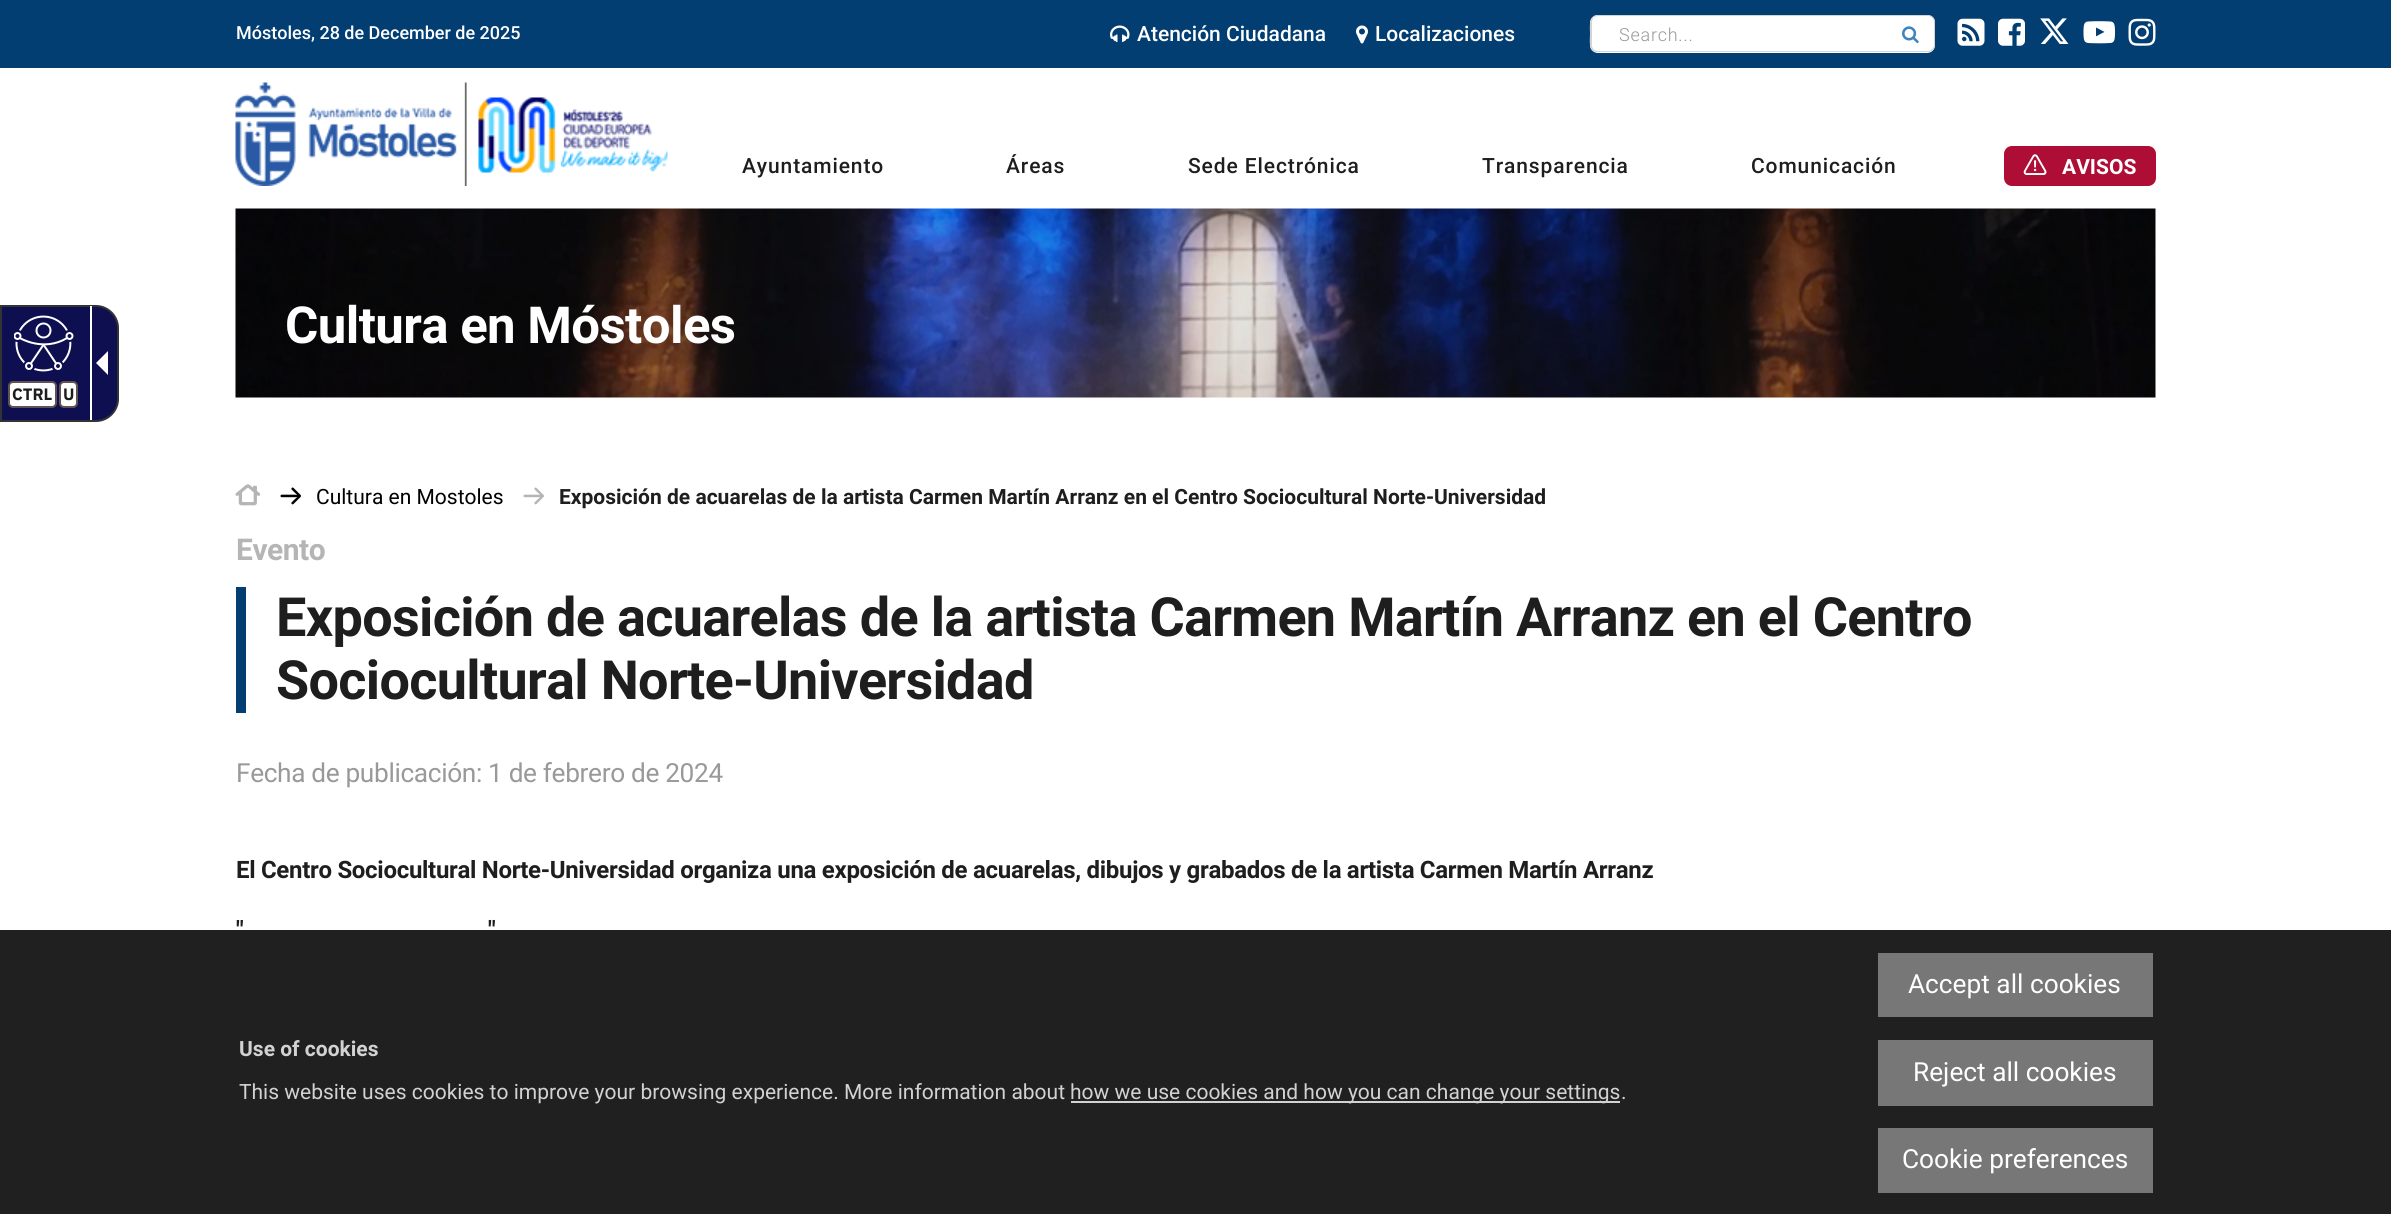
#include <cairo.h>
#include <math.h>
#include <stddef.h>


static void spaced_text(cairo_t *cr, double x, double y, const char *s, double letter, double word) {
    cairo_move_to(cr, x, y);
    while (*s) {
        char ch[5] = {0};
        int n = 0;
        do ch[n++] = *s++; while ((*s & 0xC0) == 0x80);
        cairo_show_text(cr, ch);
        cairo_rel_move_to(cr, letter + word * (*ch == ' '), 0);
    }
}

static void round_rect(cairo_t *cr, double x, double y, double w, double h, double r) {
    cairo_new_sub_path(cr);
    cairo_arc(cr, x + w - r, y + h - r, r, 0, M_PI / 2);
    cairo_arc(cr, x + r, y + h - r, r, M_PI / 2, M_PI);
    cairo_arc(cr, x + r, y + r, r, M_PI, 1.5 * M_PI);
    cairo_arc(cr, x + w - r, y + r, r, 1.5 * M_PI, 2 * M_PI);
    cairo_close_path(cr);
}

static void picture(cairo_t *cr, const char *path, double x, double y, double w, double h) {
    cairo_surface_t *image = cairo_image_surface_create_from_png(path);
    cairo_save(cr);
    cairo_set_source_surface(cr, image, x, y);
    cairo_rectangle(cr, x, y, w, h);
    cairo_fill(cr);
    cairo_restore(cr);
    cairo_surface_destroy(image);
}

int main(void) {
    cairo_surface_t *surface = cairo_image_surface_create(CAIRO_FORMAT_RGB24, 2391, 1214);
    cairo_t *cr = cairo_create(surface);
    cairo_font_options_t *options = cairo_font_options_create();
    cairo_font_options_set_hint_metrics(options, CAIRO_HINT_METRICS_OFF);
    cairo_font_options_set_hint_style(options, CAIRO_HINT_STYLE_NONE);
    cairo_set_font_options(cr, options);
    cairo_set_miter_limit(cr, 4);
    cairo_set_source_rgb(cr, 1, 1, 1);
    cairo_paint(cr);
    cairo_set_source_rgb(cr, 0.055, 0.059, 0.318);
    cairo_new_path(cr);
    cairo_move_to(cr, 1, 306);
    cairo_line_to(cr, 96, 306);
    cairo_curve_to(cr, 108, 306, 118, 316, 118, 328);
    cairo_line_to(cr, 118, 399);
    cairo_curve_to(cr, 118, 411, 108, 421, 96, 421);
    cairo_line_to(cr, 1, 421);
    cairo_close_path(cr);
    cairo_fill_preserve(cr);
    cairo_set_source_rgb(cr, 0.2, 0.2, 0.2);
    cairo_stroke(cr);
    cairo_set_source_rgb(cr, 1, 1, 1);
    cairo_new_path(cr);
    cairo_move_to(cr, 108, 351);
    cairo_line_to(cr, 108, 375);
    cairo_line_to(cr, 96, 363);
    cairo_close_path(cr);
    cairo_fill(cr);
    cairo_rectangle(cr, 90, 306, 2, 114);
    cairo_fill(cr);
    picture(cr, "img1.png", 14, 315, 60, 57);
    round_rect(cr, 9, 382, 47, 25, 4);
    cairo_fill_preserve(cr);
    cairo_set_source_rgb(cr, 0.388, 0.322, 0.322);
    cairo_stroke(cr);
    cairo_select_font_face(cr, "IBM Plex Sans", CAIRO_FONT_SLANT_NORMAL, CAIRO_FONT_WEIGHT_BOLD);
    cairo_set_font_size(cr, 16.5);
    cairo_set_source_rgb(cr, 0.118, 0.118, 0.118);
    cairo_move_to(cr, 12, 400);
    cairo_show_text(cr, "CTRL");
    cairo_set_source_rgb(cr, 1, 1, 1);
    round_rect(cr, 60, 382, 17, 25, 4);
    cairo_fill_preserve(cr);
    cairo_set_source_rgb(cr, 0.388, 0.322, 0.322);
    cairo_stroke(cr);
    cairo_set_source_rgb(cr, 0.118, 0.118, 0.118);
    cairo_move_to(cr, 63, 400);
    cairo_show_text(cr, "U");
    cairo_set_source_rgb(cr, 0.012, 0.243, 0.447);
    cairo_rectangle(cr, 0, 0, 2391, 68);
    cairo_fill(cr);
    cairo_select_font_face(cr, "Roboto Medium", CAIRO_FONT_SLANT_NORMAL, CAIRO_FONT_WEIGHT_NORMAL);
    cairo_set_font_size(cr, 18);
    cairo_set_source_rgb(cr, 1, 1, 1);
    cairo_move_to(cr, 236, 39);
    cairo_show_text(cr, "Móstoles, 28 de December de 2025");
    picture(cr, "img2.png", 1110, 25, 20, 17);
    cairo_set_font_size(cr, 21);
    cairo_move_to(cr, 1137, 41);
    cairo_show_text(cr, "Atención Ciudadana");
    picture(cr, "img3.png", 1356, 25, 12, 19);
    cairo_move_to(cr, 1375, 41);
    cairo_show_text(cr, "Localizaciones");
    cairo_new_path(cr);
    cairo_move_to(cr, 1598, 15);
    cairo_line_to(cr, 1889, 15);
    cairo_line_to(cr, 1889, 53);
    cairo_line_to(cr, 1598, 53);
    cairo_curve_to(cr, 1593.5, 53, 1590, 49.5, 1590, 45);
    cairo_line_to(cr, 1590, 23);
    cairo_curve_to(cr, 1590, 18.5, 1593.5, 15, 1598, 15);
    cairo_close_path(cr);
    cairo_fill(cr);
    cairo_set_source_rgb(cr, 0.827, 0.827, 0.827);
    cairo_set_fill_rule(cr, CAIRO_FILL_RULE_EVEN_ODD);
    cairo_new_path(cr);
    cairo_move_to(cr, 1598, 15);
    cairo_line_to(cr, 1888, 15);
    cairo_line_to(cr, 1888, 52);
    cairo_line_to(cr, 1596, 52);
    cairo_curve_to(cr, 1588, 51, 1590, 40, 1590, 34);
    cairo_curve_to(cr, 1590, 28, 1588, 15, 1598, 15);
    cairo_close_path(cr);
    cairo_move_to(cr, 1598, 16);
    cairo_line_to(cr, 1888, 16);
    cairo_line_to(cr, 1888, 51);
    cairo_line_to(cr, 1598, 51);
    cairo_curve_to(cr, 1594, 51, 1592, 48, 1592, 45);
    cairo_line_to(cr, 1592, 22);
    cairo_curve_to(cr, 1592, 19, 1594, 16, 1598, 16);
    cairo_close_path(cr);
    cairo_fill(cr);
    cairo_select_font_face(cr, "Roboto Light", CAIRO_FONT_SLANT_NORMAL, CAIRO_FONT_WEIGHT_NORMAL);
    cairo_set_font_size(cr, 18);
    cairo_set_source_rgb(cr, 0.6, 0.6, 0.6);
    spaced_text(cr, 1619, 41, "Search...", 0.75, 0);
    cairo_set_source_rgb(cr, 1, 1, 1);
    cairo_new_path(cr);
    cairo_move_to(cr, 1887, 15);
    cairo_line_to(cr, 1927, 15);
    cairo_curve_to(cr, 1931.5, 15, 1935, 18.5, 1935, 23);
    cairo_line_to(cr, 1935, 45);
    cairo_curve_to(cr, 1935, 49.5, 1931.5, 53, 1927, 53);
    cairo_line_to(cr, 1887, 53);
    cairo_close_path(cr);
    cairo_fill(cr);
    cairo_set_source_rgb(cr, 0.827, 0.827, 0.827);
    cairo_new_path(cr);
    cairo_move_to(cr, 1887, 15);
    cairo_line_to(cr, 1928, 15);
    cairo_curve_to(cr, 1932, 15, 1935, 18, 1935, 22);
    cairo_line_to(cr, 1935, 45);
    cairo_curve_to(cr, 1935, 49, 1932, 52, 1928, 52);
    cairo_line_to(cr, 1887, 52);
    cairo_close_path(cr);
    cairo_move_to(cr, 1887, 16);
    cairo_line_to(cr, 1928, 16);
    cairo_curve_to(cr, 1931, 16, 1934, 19, 1934, 22);
    cairo_line_to(cr, 1934, 45);
    cairo_curve_to(cr, 1934, 48, 1931, 51, 1928, 51);
    cairo_line_to(cr, 1887, 51);
    cairo_close_path(cr);
    cairo_fill(cr);
    picture(cr, "img4.png", 1902, 26, 17, 18);
    picture(cr, "img5.png", 1957, 18, 28, 28);
    picture(cr, "img6.png", 1998, 18, 27, 28);
    picture(cr, "img7.png", 2040, 18, 29, 26);
    picture(cr, "img8.png", 2083, 21, 32, 23);
    picture(cr, "img9.png", 2128, 18, 28, 28);
    picture(cr, "img10.png", 235, 82, 433, 104);
    cairo_select_font_face(cr, "Roboto Medium", CAIRO_FONT_SLANT_NORMAL, CAIRO_FONT_WEIGHT_NORMAL);
    cairo_set_font_size(cr, 21);
    cairo_set_source_rgb(cr, 0.118, 0.118, 0.118);
    spaced_text(cr, 742, 173, "Ayuntamiento", 0.9, 0);
    spaced_text(cr, 1006, 173, "Áreas", 0.9, 0);
    spaced_text(cr, 1188, 173, "Sede Electrónica", 0.9, 0);
    spaced_text(cr, 1482, 173, "Transparencia", 0.9, 0);
    spaced_text(cr, 1751, 173, "Comunicación", 0.9, 0);
    cairo_set_source_rgb(cr, 0.682, 0.055, 0.212);
    round_rect(cr, 2004, 146, 152, 40, 8);
    cairo_fill(cr);
    picture(cr, "img11.png", 2023, 154, 24, 21);
    cairo_select_font_face(cr, "Roboto", CAIRO_FONT_SLANT_NORMAL, CAIRO_FONT_WEIGHT_BOLD);
    cairo_set_source_rgb(cr, 1, 1, 1);
    cairo_move_to(cr, 2062, 174);
    cairo_show_text(cr, "AVISOS");
    picture(cr, "img12.png", 235, 208, 1921, 190);
    cairo_set_font_size(cr, 51);
    spaced_text(cr, 285, 343, "Cultura en Móstoles", -0.6, 0);
    picture(cr, "img13.png", 235, 484, 26, 22);
    picture(cr, "img14.png", 280, 487, 21, 18);
    cairo_select_font_face(cr, "Roboto", CAIRO_FONT_SLANT_NORMAL, CAIRO_FONT_WEIGHT_NORMAL);
    cairo_set_font_size(cr, 21);
    cairo_set_source_rgb(cr, 0, 0, 0);
    cairo_move_to(cr, 316, 504);
    cairo_show_text(cr, "Cultura en Mostoles");
    picture(cr, "img15.png", 523, 487, 21, 18);
    cairo_select_font_face(cr, "Roboto", CAIRO_FONT_SLANT_NORMAL, CAIRO_FONT_WEIGHT_BOLD);
    cairo_set_source_rgb(cr, 0.118, 0.118, 0.118);
    cairo_move_to(cr, 559, 504);
    cairo_show_text(cr, "Exposición de acuarelas de la artista Carmen Martín Arranz en el Centro Sociocultural Norte-Universidad");
    cairo_set_font_size(cr, 30);
    cairo_set_source_rgb(cr, 0.71, 0.71, 0.71);
    spaced_text(cr, 236, 560, "Evento", -0.5, 0);
    cairo_set_source_rgb(cr, 0.012, 0.243, 0.447);
    cairo_rectangle(cr, 236, 587, 10, 126);
    cairo_fill(cr);
    cairo_set_font_size(cr, 54);
    cairo_set_source_rgb(cr, 0.118, 0.118, 0.118);
    spaced_text(cr, 276, 636, "Exposición de acuarelas de la artista Carmen Martín Arranz en el Centro", -0.7, 0);
    spaced_text(cr, 276, 699, "Sociocultural Norte-Universidad", -0.7, 0);
    cairo_select_font_face(cr, "Roboto", CAIRO_FONT_SLANT_NORMAL, CAIRO_FONT_WEIGHT_NORMAL);
    cairo_set_font_size(cr, 26.25);
    cairo_set_source_rgb(cr, 0.6, 0.6, 0.6);
    spaced_text(cr, 236, 782, "Fecha de publicación: 1 de febrero de 2024", -0.35, 0);
    cairo_select_font_face(cr, "Roboto", CAIRO_FONT_SLANT_NORMAL, CAIRO_FONT_WEIGHT_BOLD);
    cairo_set_font_size(cr, 24);
    cairo_set_source_rgb(cr, 0.118, 0.118, 0.118);
    spaced_text(cr, 236, 878, "El Centro Sociocultural Norte-Universidad organiza una exposición de acuarelas, dibujos y grabados de la artista Carmen Martín Arranz", -0.3, 0);
    spaced_text(cr, 236, 938, "\"", -0.3, 0);
    spaced_text(cr, 488, 938, "\"", -0.3, 0);
    cairo_set_source_rgb(cr, 0.125, 0.125, 0.125);
    cairo_rectangle(cr, 0, 930, 2391, 284);
    cairo_fill(cr);
    cairo_set_font_size(cr, 21);
    cairo_set_source_rgb(cr, 0.824, 0.824, 0.824);
    cairo_move_to(cr, 239, 1056);
    cairo_show_text(cr, "Use of cookies");
    cairo_select_font_face(cr, "Roboto", CAIRO_FONT_SLANT_NORMAL, CAIRO_FONT_WEIGHT_NORMAL);
    cairo_move_to(cr, 239, 1099);
    cairo_show_text(cr, "This website uses cookies to improve your browsing experience. More information about");
    cairo_rectangle(cr, 1071, 1101, 549, 2);
    cairo_fill(cr);
    cairo_move_to(cr, 1070, 1099);
    cairo_show_text(cr, "how we use cookies and how you can change your settings");
    cairo_move_to(cr, 1621, 1099);
    cairo_show_text(cr, ".");
    cairo_set_source_rgb(cr, 0.467, 0.467, 0.467);
    cairo_rectangle(cr, 1878, 953, 275, 64);
    cairo_fill(cr);
    cairo_set_font_size(cr, 26.25);
    cairo_set_source_rgb(cr, 1, 1, 1);
    cairo_move_to(cr, 1908, 993);
    cairo_show_text(cr, "Accept all cookies");
    cairo_set_source_rgb(cr, 0.467, 0.467, 0.467);
    cairo_rectangle(cr, 1878, 1040, 275, 66);
    cairo_fill(cr);
    cairo_set_source_rgb(cr, 1, 1, 1);
    cairo_move_to(cr, 1913, 1081);
    cairo_show_text(cr, "Reject all cookies");
    cairo_set_source_rgb(cr, 0.467, 0.467, 0.467);
    cairo_rectangle(cr, 1878, 1128, 275, 65);
    cairo_fill(cr);
    cairo_set_source_rgb(cr, 1, 1, 1);
    cairo_move_to(cr, 1902, 1168);
    cairo_show_text(cr, "Cookie preferences");
    cairo_surface_write_to_png(surface, "page.png");
    cairo_font_options_destroy(options);
    cairo_destroy(cr);
    cairo_surface_destroy(surface);
    return 0;
}
